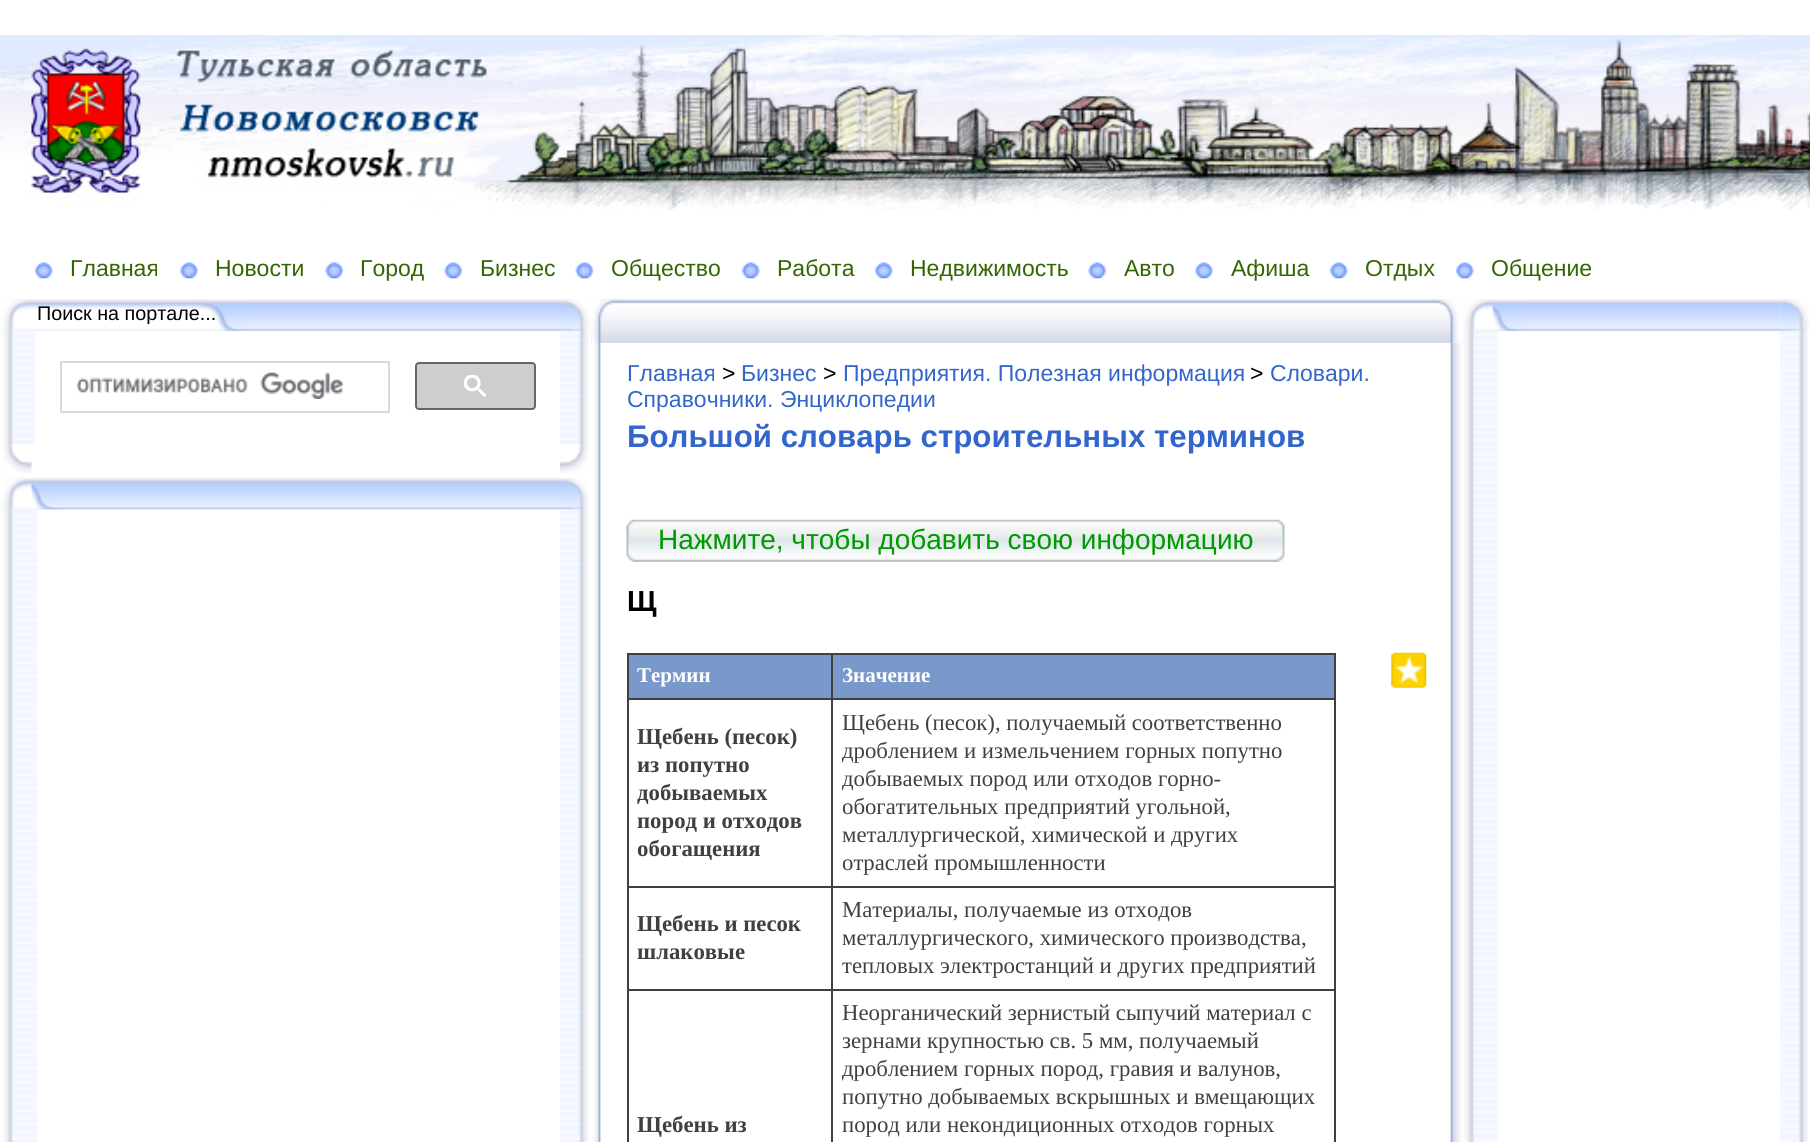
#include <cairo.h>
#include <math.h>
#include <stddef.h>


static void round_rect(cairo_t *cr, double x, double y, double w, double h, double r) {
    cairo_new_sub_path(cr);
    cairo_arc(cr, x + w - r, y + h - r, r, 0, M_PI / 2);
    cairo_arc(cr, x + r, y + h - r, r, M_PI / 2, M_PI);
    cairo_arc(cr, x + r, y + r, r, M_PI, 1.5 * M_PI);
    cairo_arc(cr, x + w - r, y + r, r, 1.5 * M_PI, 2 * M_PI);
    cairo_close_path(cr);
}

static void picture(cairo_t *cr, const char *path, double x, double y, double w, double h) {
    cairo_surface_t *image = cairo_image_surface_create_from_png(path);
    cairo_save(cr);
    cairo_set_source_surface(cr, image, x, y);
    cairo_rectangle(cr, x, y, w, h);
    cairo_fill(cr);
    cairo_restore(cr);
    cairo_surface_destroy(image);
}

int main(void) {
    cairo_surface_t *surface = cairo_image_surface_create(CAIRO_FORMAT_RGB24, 1810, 1142);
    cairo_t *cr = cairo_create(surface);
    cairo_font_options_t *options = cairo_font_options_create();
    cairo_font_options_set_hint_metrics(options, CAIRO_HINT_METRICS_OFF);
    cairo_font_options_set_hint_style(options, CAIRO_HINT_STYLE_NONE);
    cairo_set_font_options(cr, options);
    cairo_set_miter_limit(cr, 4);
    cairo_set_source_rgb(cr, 1, 1, 1);
    cairo_paint(cr);
    picture(cr, "img1.png", 0, 35, 1810, 175);
    picture(cr, "img2.png", 35, 262, 18, 17);
    cairo_select_font_face(cr, "Liberation Sans", CAIRO_FONT_SLANT_NORMAL, CAIRO_FONT_WEIGHT_NORMAL);
    cairo_set_font_size(cr, 23);
    cairo_set_source_rgb(cr, 0.2, 0.4, 0);
    cairo_move_to(cr, 70, 276);
    cairo_show_text(cr, "Главная");
    picture(cr, "img3.png", 180, 262, 18, 17);
    cairo_move_to(cr, 215, 276);
    cairo_show_text(cr, "Новости");
    picture(cr, "img4.png", 325, 262, 18, 17);
    cairo_move_to(cr, 360, 276);
    cairo_show_text(cr, "Город");
    picture(cr, "img5.png", 444, 262, 18, 17);
    cairo_move_to(cr, 480, 276);
    cairo_show_text(cr, "Бизнес");
    picture(cr, "img6.png", 575, 262, 19, 17);
    cairo_move_to(cr, 611, 276);
    cairo_show_text(cr, "Общество");
    picture(cr, "img7.png", 742, 262, 18, 17);
    cairo_move_to(cr, 777, 276);
    cairo_show_text(cr, "Работа");
    picture(cr, "img7.png", 875, 262, 18, 17);
    cairo_move_to(cr, 910, 276);
    cairo_show_text(cr, "Недвижимость");
    picture(cr, "img5.png", 1088, 262, 18, 17);
    cairo_move_to(cr, 1124, 276);
    cairo_show_text(cr, "Авто");
    picture(cr, "img8.png", 1195, 262, 18, 17);
    cairo_move_to(cr, 1231, 276);
    cairo_show_text(cr, "Афиша");
    picture(cr, "img7.png", 1330, 262, 18, 17);
    cairo_move_to(cr, 1365, 276);
    cairo_show_text(cr, "Отдых");
    picture(cr, "img7.png", 1456, 262, 18, 17);
    cairo_move_to(cr, 1491, 276);
    cairo_show_text(cr, "Общение");
    picture(cr, "img9.png", 0, 299, 560, 32);
    picture(cr, "img10.png", 0, 303, 247, 28);
    picture(cr, "img13.png", 0, 330, 37, 115);
    picture(cr, "img11.png", 0, 299, 31, 32);
    cairo_set_font_size(cr, 19.75);
    cairo_set_source_rgb(cr, 0, 0, 0);
    cairo_move_to(cr, 37, 320);
    cairo_show_text(cr, "Поиск на портале...");
    picture(cr, "img16.png", 560, 330, 29, 115);
    picture(cr, "img31.png", 591, 299, 871, 44);
    picture(cr, "img12.png", 560, 299, 32, 32);
    cairo_set_source_rgb(cr, 1, 1, 1);
    cairo_rectangle(cr, 35, 336, 2, 109);
    cairo_fill(cr);
    cairo_rectangle(cr, 61, 362, 328, 50);
    cairo_set_source_rgb(cr, 0.851, 0.851, 0.851);
    cairo_stroke(cr);
    picture(cr, "img14.png", 77, 372, 266, 27);
    cairo_set_source_rgb(cr, 0.808, 0.808, 0.808);
    round_rect(cr, 416, 363, 119, 46, 3);
    cairo_fill_preserve(cr);
    cairo_set_source_rgb(cr, 0.4, 0.4, 0.4);
    cairo_stroke(cr);
    picture(cr, "img15.png", 464, 375, 23, 22);
    picture(cr, "img17.png", 3, 444, 29, 29);
    picture(cr, "img18.png", 560, 444, 29, 29);
    picture(cr, "img19.png", 0, 477, 560, 33);
    picture(cr, "img20.png", 0, 481, 63, 29);
    picture(cr, "img21.png", 0, 478, 32, 31);
    picture(cr, "img24.png", 560, 509, 29, 633);
    picture(cr, "img22.png", 560, 478, 29, 32);
    picture(cr, "img23.png", 0, 509, 37, 633);
    picture(cr, "img32.png", 1432, 299, 30, 44);
    picture(cr, "img25.png", 1461, 299, 319, 32);
    picture(cr, "img26.png", 1461, 302, 63, 29);
    picture(cr, "img29.png", 1461, 330, 37, 812);
    picture(cr, "img27.png", 1461, 299, 32, 32);
    picture(cr, "img30.png", 1779, 330, 29, 812);
    picture(cr, "img28.png", 1779, 299, 30, 32);
    picture(cr, "img33.png", 591, 299, 28, 44);
    picture(cr, "img34.png", 593, 343, 8, 799);
    picture(cr, "img35.png", 1450, 343, 11, 799);
    cairo_set_font_size(cr, 23);
    cairo_set_source_rgb(cr, 0.2, 0.4, 0.8);
    cairo_move_to(cr, 627, 381);
    cairo_show_text(cr, "Главная");
    cairo_set_source_rgb(cr, 0, 0, 0);
    cairo_move_to(cr, 722, 381);
    cairo_show_text(cr, ">");
    cairo_set_source_rgb(cr, 0.2, 0.4, 0.8);
    cairo_move_to(cr, 741, 381);
    cairo_show_text(cr, "Бизнес");
    cairo_set_source_rgb(cr, 0, 0, 0);
    cairo_move_to(cr, 823, 381);
    cairo_show_text(cr, ">");
    cairo_set_source_rgb(cr, 0.2, 0.4, 0.8);
    cairo_move_to(cr, 843, 381);
    cairo_show_text(cr, "Предприятия. Полезная информация");
    cairo_set_source_rgb(cr, 0, 0, 0);
    cairo_move_to(cr, 1250, 381);
    cairo_show_text(cr, ">");
    cairo_set_source_rgb(cr, 0.2, 0.4, 0.8);
    cairo_move_to(cr, 1270, 381);
    cairo_show_text(cr, "Словари.");
    cairo_move_to(cr, 627, 407);
    cairo_show_text(cr, "Справочники. Энциклопедии");
    cairo_select_font_face(cr, "Liberation Sans", CAIRO_FONT_SLANT_NORMAL, CAIRO_FONT_WEIGHT_BOLD);
    cairo_set_font_size(cr, 31.25);
    cairo_move_to(cr, 627, 447);
    cairo_show_text(cr, "Большой словарь строительных терминов");
    picture(cr, "img36.png", 1253, 519, 32, 43);
    picture(cr, "img37.png", 626, 519, 627, 43);
    cairo_select_font_face(cr, "Liberation Sans", CAIRO_FONT_SLANT_NORMAL, CAIRO_FONT_WEIGHT_NORMAL);
    cairo_set_font_size(cr, 28);
    cairo_set_source_rgb(cr, 0, 0.6, 0);
    cairo_move_to(cr, 658, 549);
    cairo_show_text(cr, "Нажмите, чтобы добавить свою информацию");
    cairo_select_font_face(cr, "Liberation Sans", CAIRO_FONT_SLANT_NORMAL, CAIRO_FONT_WEIGHT_BOLD);
    cairo_set_font_size(cr, 29);
    cairo_set_source_rgb(cr, 0, 0, 0);
    cairo_move_to(cr, 627, 611);
    cairo_show_text(cr, "Щ");
    cairo_set_source_rgb(cr, 0.251, 0.251, 0.251);
    cairo_rectangle(cr, 627, 653, 708, 2);
    cairo_fill(cr);
    cairo_rectangle(cr, 627, 653, 2, 489);
    cairo_fill(cr);
    cairo_set_source_rgb(cr, 0.478, 0.6, 0.796);
    cairo_rectangle(cr, 629, 655, 705, 43);
    cairo_fill(cr);
    cairo_set_source_rgb(cr, 0.251, 0.251, 0.251);
    cairo_rectangle(cr, 831, 989, 2, 153);
    cairo_fill(cr);
    cairo_rectangle(cr, 1334, 653, 2, 489);
    cairo_fill(cr);
    cairo_rectangle(cr, 831, 989, 504, 2);
    cairo_fill(cr);
    cairo_rectangle(cr, 831, 886, 2, 105);
    cairo_fill(cr);
    cairo_rectangle(cr, 831, 886, 504, 2);
    cairo_fill(cr);
    cairo_rectangle(cr, 831, 698, 2, 189);
    cairo_fill(cr);
    cairo_rectangle(cr, 831, 698, 504, 2);
    cairo_fill(cr);
    cairo_rectangle(cr, 831, 653, 2, 47);
    cairo_fill(cr);
    cairo_rectangle(cr, 627, 698, 206, 2);
    cairo_fill(cr);
    cairo_select_font_face(cr, "Liberation Serif", CAIRO_FONT_SLANT_NORMAL, CAIRO_FONT_WEIGHT_BOLD);
    cairo_set_font_size(cr, 21);
    cairo_set_source_rgb(cr, 1, 1, 1);
    cairo_move_to(cr, 637, 682);
    cairo_show_text(cr, "Термин");
    cairo_move_to(cr, 842, 682);
    cairo_show_text(cr, "Значение");
    cairo_set_source_rgb(cr, 0.251, 0.251, 0.251);
    cairo_rectangle(cr, 627, 886, 206, 2);
    cairo_fill(cr);
    cairo_set_font_size(cr, 22.75);
    cairo_move_to(cr, 637, 744);
    cairo_show_text(cr, "Щебень (песок)");
    cairo_move_to(cr, 637, 772);
    cairo_show_text(cr, "из попутно");
    cairo_move_to(cr, 637, 800);
    cairo_show_text(cr, "добываемых");
    cairo_move_to(cr, 637, 828);
    cairo_show_text(cr, "пород и отходов");
    cairo_move_to(cr, 637, 856);
    cairo_show_text(cr, "обогащения");
    cairo_select_font_face(cr, "Liberation Serif", CAIRO_FONT_SLANT_NORMAL, CAIRO_FONT_WEIGHT_NORMAL);
    cairo_move_to(cr, 842, 730);
    cairo_show_text(cr, "Щебень (песок), получаемый соответственно");
    cairo_move_to(cr, 842, 758);
    cairo_show_text(cr, "дроблением и измельчением горных попутно");
    cairo_move_to(cr, 842, 786);
    cairo_show_text(cr, "добываемых пород или отходов горно-");
    cairo_move_to(cr, 842, 814);
    cairo_show_text(cr, "обогатительных предприятий угольной,");
    cairo_move_to(cr, 842, 842);
    cairo_show_text(cr, "металлургической, химической и других");
    cairo_move_to(cr, 842, 870);
    cairo_show_text(cr, "отраслей промышленности");
    cairo_rectangle(cr, 627, 989, 206, 2);
    cairo_fill(cr);
    cairo_select_font_face(cr, "Liberation Serif", CAIRO_FONT_SLANT_NORMAL, CAIRO_FONT_WEIGHT_BOLD);
    cairo_move_to(cr, 637, 931);
    cairo_show_text(cr, "Щебень и песок");
    cairo_move_to(cr, 637, 959);
    cairo_show_text(cr, "шлаковые");
    cairo_select_font_face(cr, "Liberation Serif", CAIRO_FONT_SLANT_NORMAL, CAIRO_FONT_WEIGHT_NORMAL);
    cairo_move_to(cr, 842, 917);
    cairo_show_text(cr, "Материалы, получаемые из отходов");
    cairo_move_to(cr, 842, 945);
    cairo_show_text(cr, "металлургического, химического производства,");
    cairo_move_to(cr, 842, 973);
    cairo_show_text(cr, "тепловых электростанций и других предприятий");
    cairo_select_font_face(cr, "Liberation Serif", CAIRO_FONT_SLANT_NORMAL, CAIRO_FONT_WEIGHT_BOLD);
    cairo_move_to(cr, 637, 1132);
    cairo_show_text(cr, "Щебень из");
    cairo_select_font_face(cr, "Liberation Serif", CAIRO_FONT_SLANT_NORMAL, CAIRO_FONT_WEIGHT_NORMAL);
    cairo_move_to(cr, 842, 1020);
    cairo_show_text(cr, "Неорганический зернистый сыпучий материал с");
    cairo_move_to(cr, 842, 1048);
    cairo_show_text(cr, "зернами крупностью св. 5 мм, получаемый");
    cairo_move_to(cr, 842, 1076);
    cairo_show_text(cr, "дроблением горных пород, гравия и валунов,");
    cairo_move_to(cr, 842, 1104);
    cairo_show_text(cr, "попутно добываемых вскрышных и вмещающих");
    cairo_move_to(cr, 842, 1132);
    cairo_show_text(cr, "пород или некондиционных отходов горных");
    picture(cr, "img38.png", 1391, 652, 36, 36);
    cairo_surface_write_to_png(surface, "page.png");
    cairo_font_options_destroy(options);
    cairo_destroy(cr);
    cairo_surface_destroy(surface);
    return 0;
}
